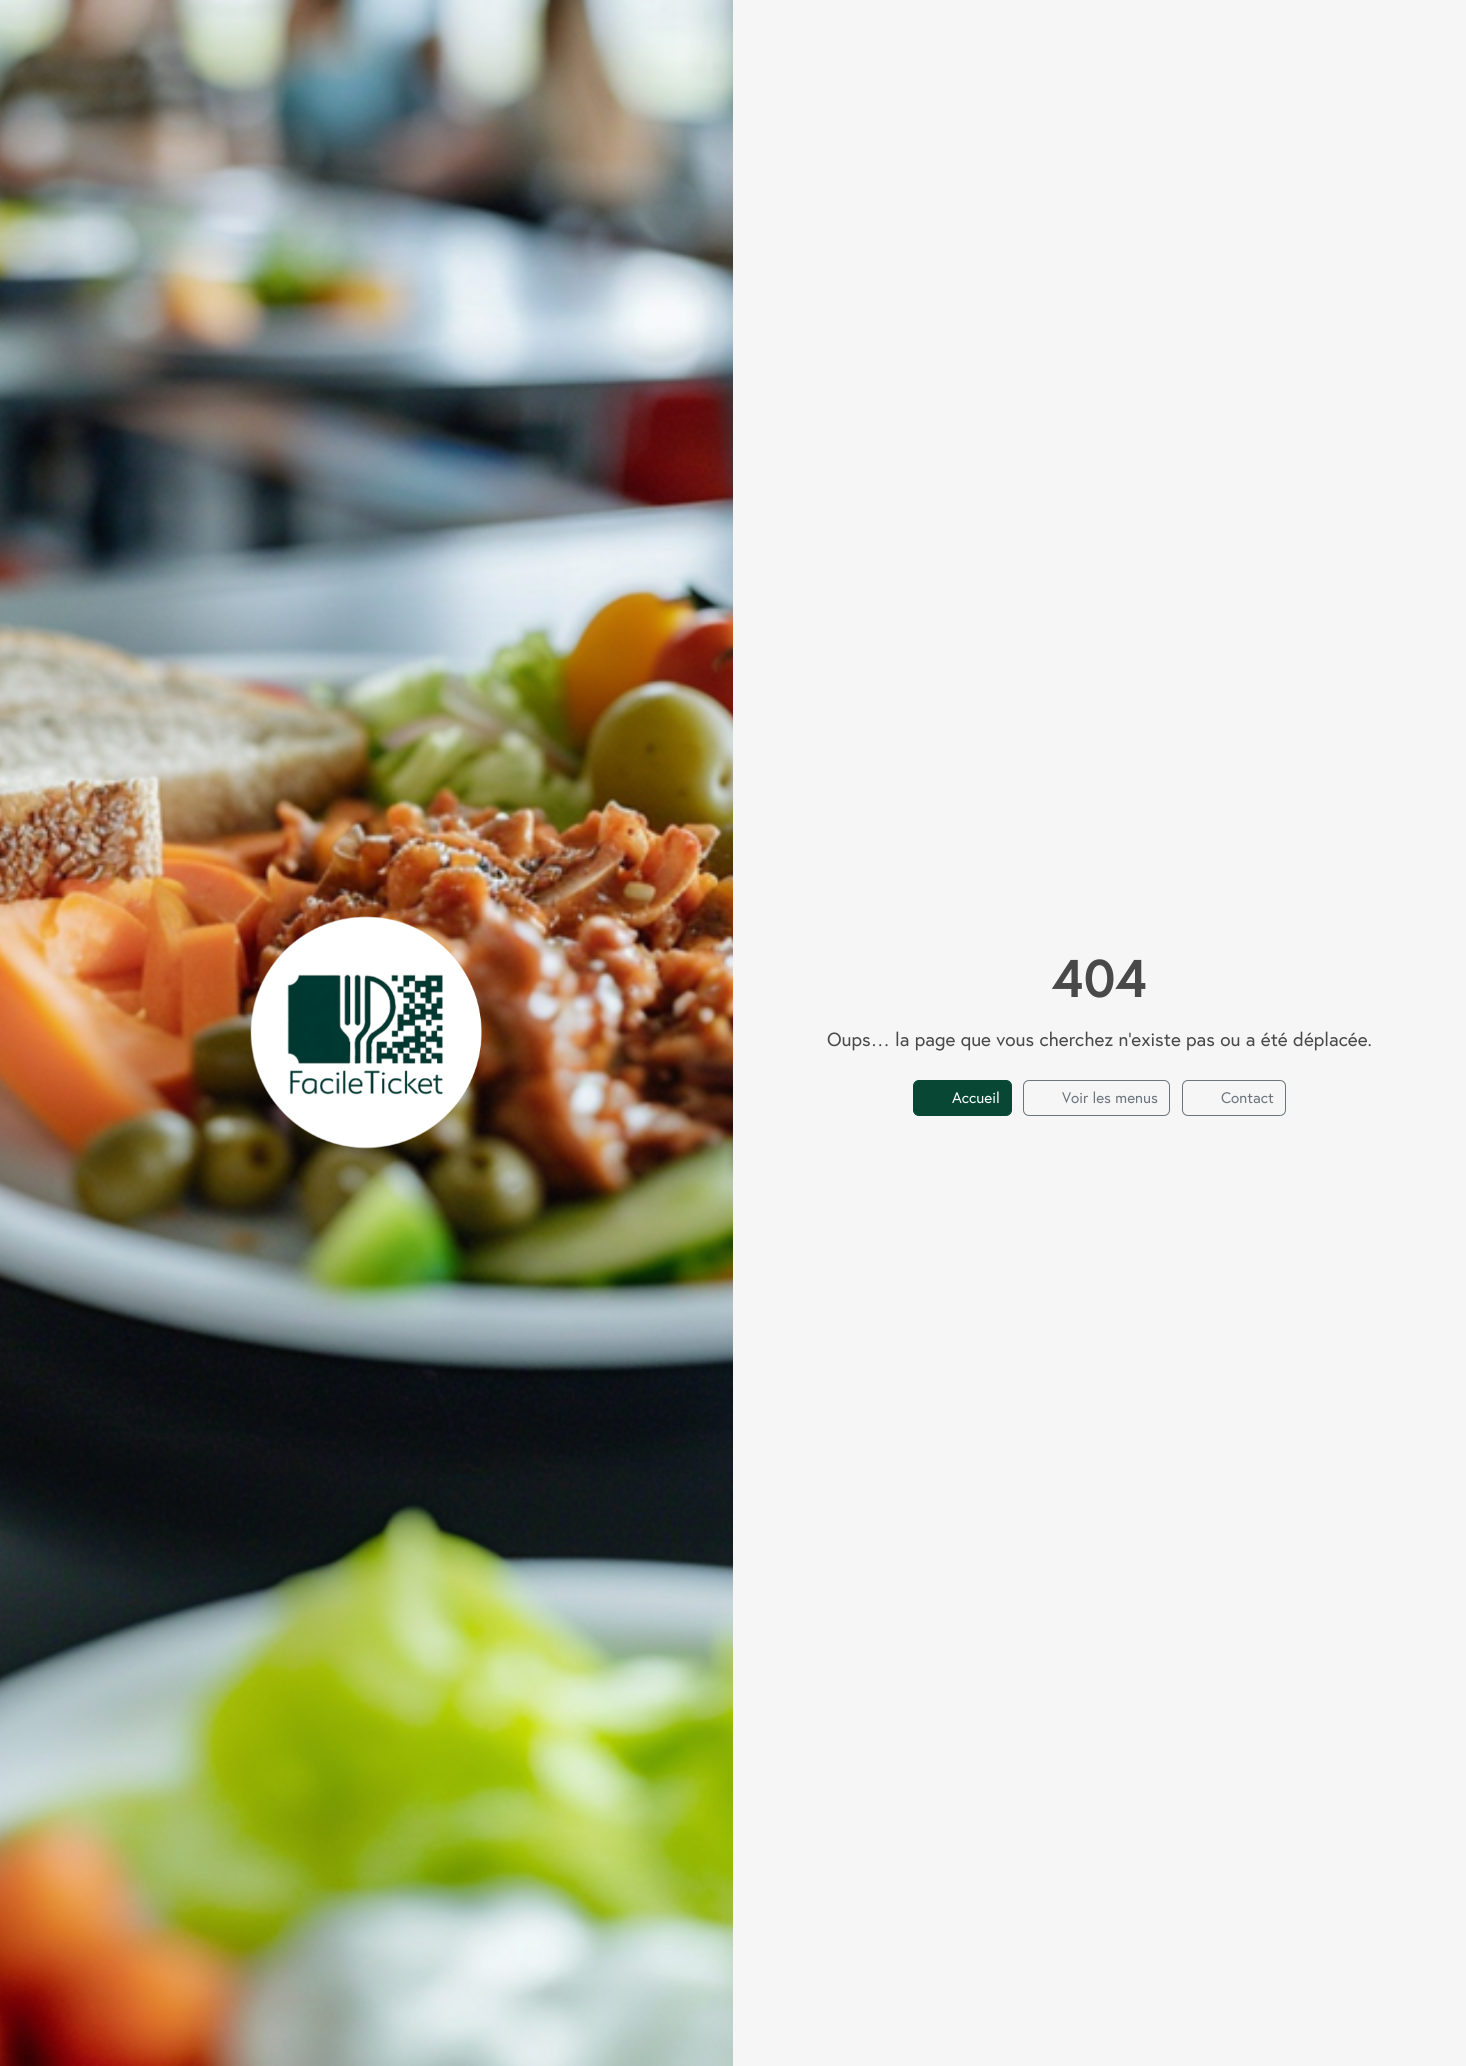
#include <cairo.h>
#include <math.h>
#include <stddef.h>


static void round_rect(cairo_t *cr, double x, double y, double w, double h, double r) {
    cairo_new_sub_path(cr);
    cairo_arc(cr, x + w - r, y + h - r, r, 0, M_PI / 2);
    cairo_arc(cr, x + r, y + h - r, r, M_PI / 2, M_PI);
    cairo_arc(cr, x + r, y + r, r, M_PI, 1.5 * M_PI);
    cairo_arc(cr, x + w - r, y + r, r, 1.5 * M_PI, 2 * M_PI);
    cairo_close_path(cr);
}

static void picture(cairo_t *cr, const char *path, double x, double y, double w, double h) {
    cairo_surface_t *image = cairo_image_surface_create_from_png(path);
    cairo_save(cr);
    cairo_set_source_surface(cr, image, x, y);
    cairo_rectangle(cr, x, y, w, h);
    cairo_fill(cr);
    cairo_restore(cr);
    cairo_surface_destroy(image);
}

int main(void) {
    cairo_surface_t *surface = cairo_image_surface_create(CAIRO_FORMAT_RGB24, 1466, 2066);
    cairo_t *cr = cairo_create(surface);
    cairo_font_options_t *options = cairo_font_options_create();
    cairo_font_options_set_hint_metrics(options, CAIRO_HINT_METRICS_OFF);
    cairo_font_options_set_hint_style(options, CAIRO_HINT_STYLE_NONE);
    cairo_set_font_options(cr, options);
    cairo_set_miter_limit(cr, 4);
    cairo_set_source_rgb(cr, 0.961, 0.961, 0.961);
    cairo_paint(cr);
    picture(cr, "img1.png", 0, 0, 733, 2066);
    picture(cr, "img2.png", 250, 916, 232, 233);
    cairo_select_font_face(cr, "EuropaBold", CAIRO_FONT_SLANT_NORMAL, CAIRO_FONT_WEIGHT_BOLD);
    cairo_set_font_size(cr, 53);
    cairo_set_source_rgb(cr, 0.286, 0.286, 0.286);
    cairo_move_to(cr, 1052, 997);
    cairo_show_text(cr, "404");
    cairo_select_font_face(cr, "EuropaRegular", CAIRO_FONT_SLANT_NORMAL, CAIRO_FONT_WEIGHT_NORMAL);
    cairo_set_font_size(cr, 19);
    cairo_move_to(cr, 827, 1046);
    cairo_show_text(cr, "Oups… la page que vous cherchez n’existe pas ou a été déplacée.");
    cairo_set_source_rgb(cr, 0.031, 0.278, 0.204);
    round_rect(cr, 913.5, 1080.5, 98, 35, 5.5);
    cairo_fill_preserve(cr);
    cairo_set_line_width(cr, 1);
    cairo_stroke(cr);
    cairo_set_font_size(cr, 15.25);
    cairo_set_source_rgb(cr, 1, 1, 1);
    cairo_move_to(cr, 952, 1103);
    cairo_show_text(cr, "Accueil");
    round_rect(cr, 1023.5, 1080.5, 146, 35, 5.5);
    cairo_set_source_rgb(cr, 0.424, 0.459, 0.49);
    cairo_stroke(cr);
    cairo_move_to(cr, 1062, 1103);
    cairo_show_text(cr, "Voir les menus");
    round_rect(cr, 1182.5, 1080.5, 103, 35, 5.5);
    cairo_stroke(cr);
    cairo_move_to(cr, 1221, 1103);
    cairo_show_text(cr, "Contact");
    cairo_surface_write_to_png(surface, "page.png");
    cairo_font_options_destroy(options);
    cairo_destroy(cr);
    cairo_surface_destroy(surface);
    return 0;
}
